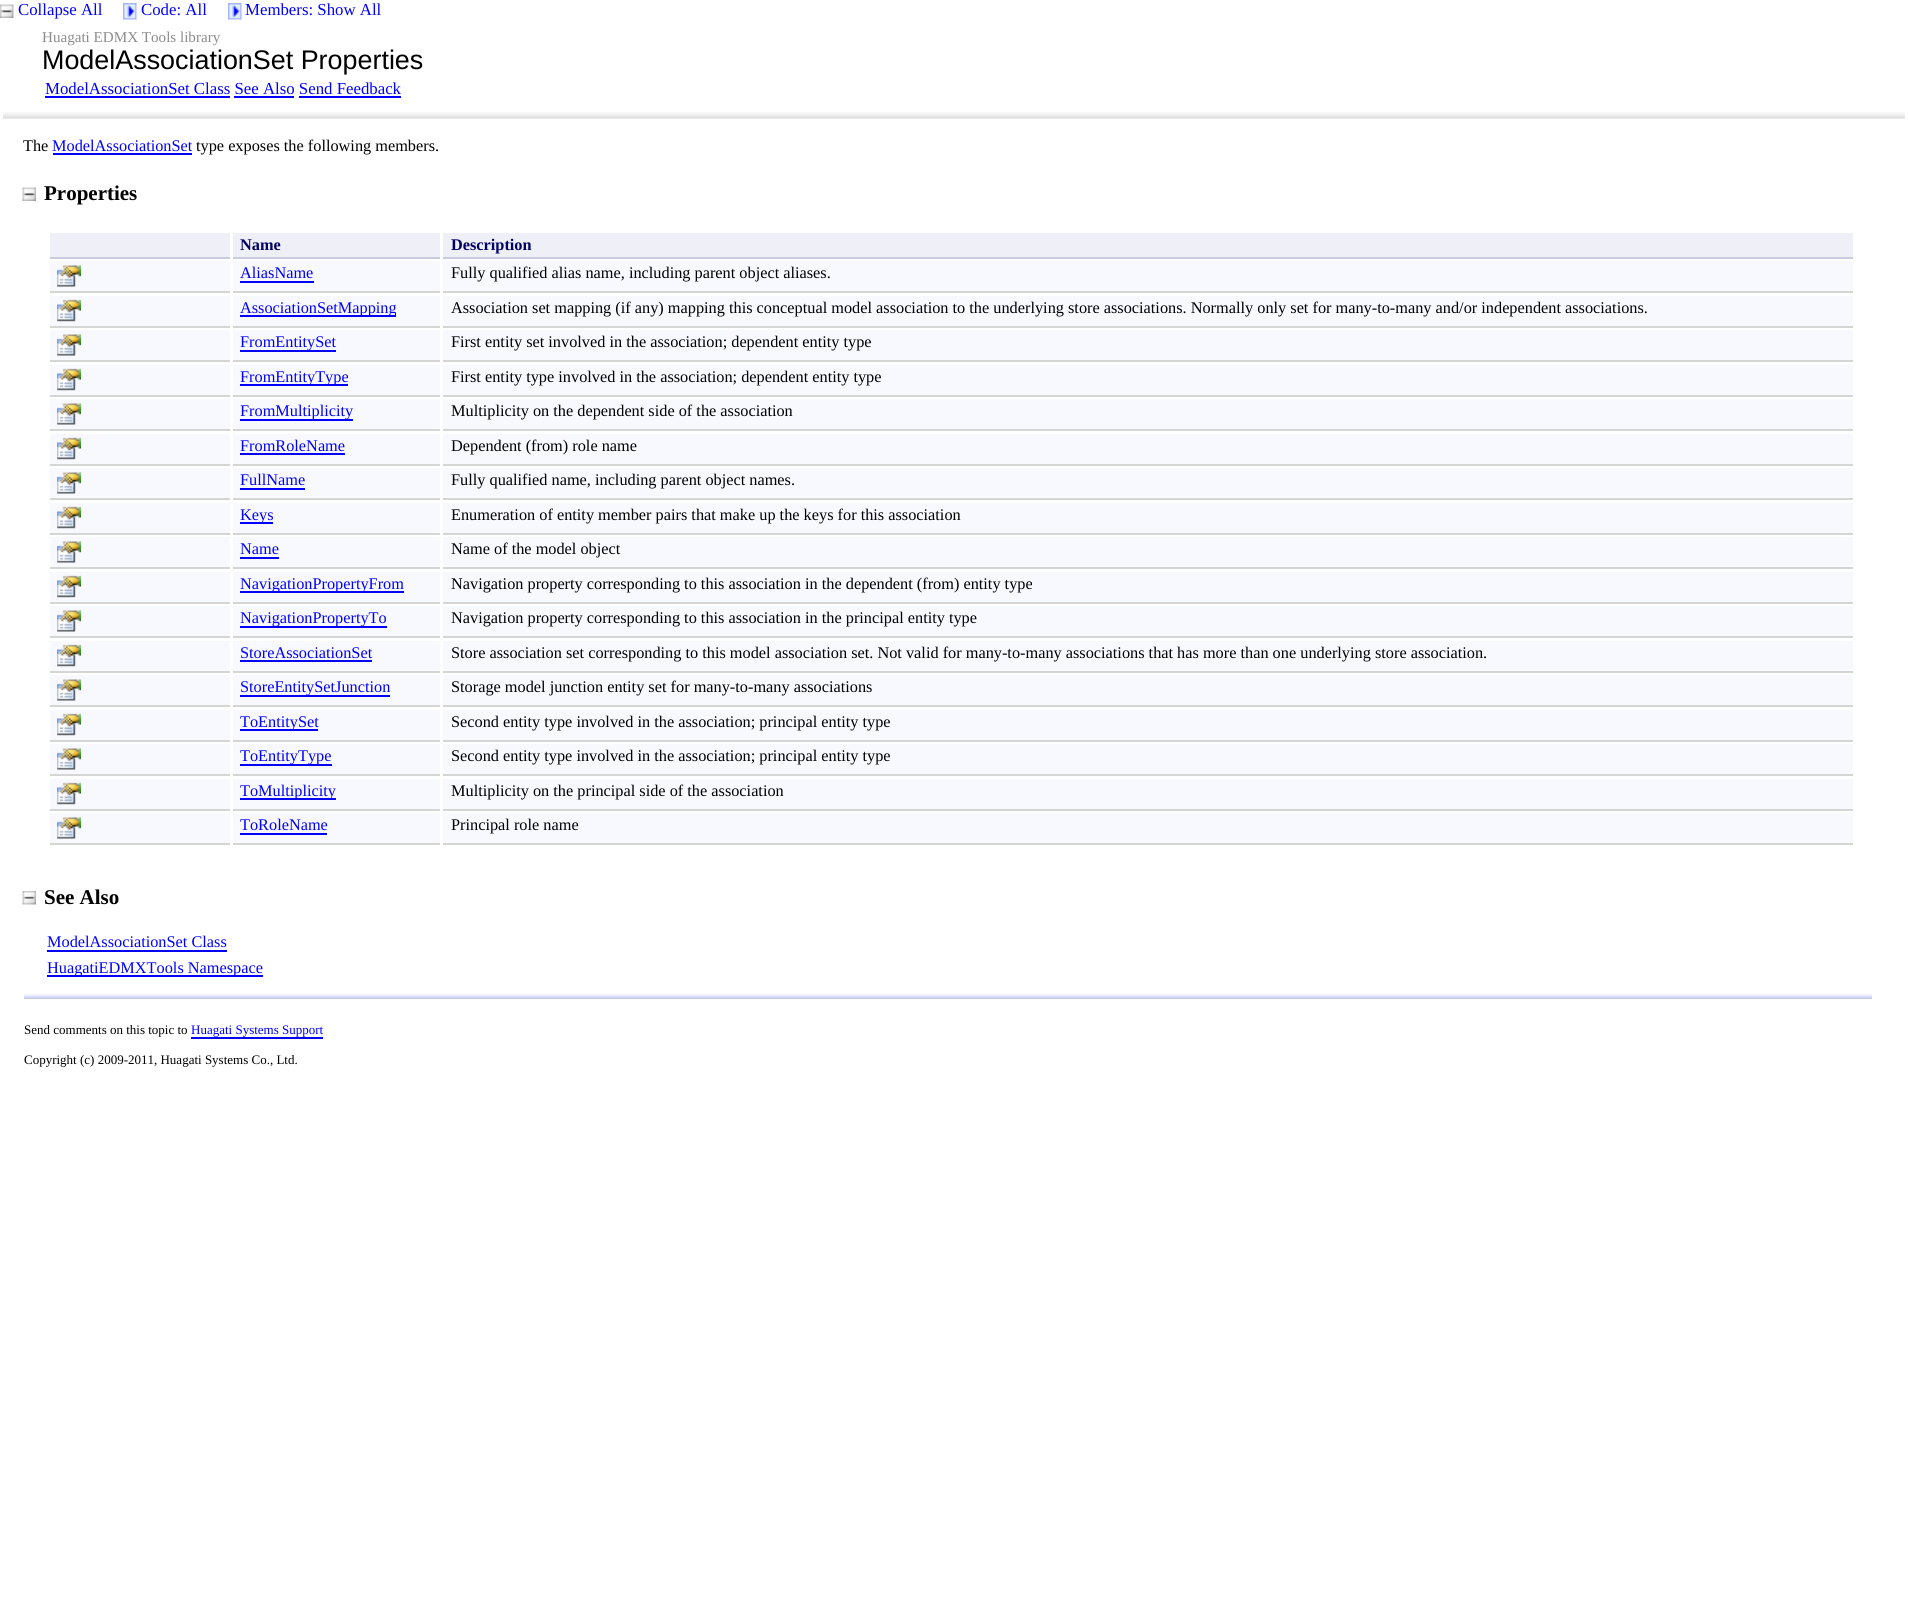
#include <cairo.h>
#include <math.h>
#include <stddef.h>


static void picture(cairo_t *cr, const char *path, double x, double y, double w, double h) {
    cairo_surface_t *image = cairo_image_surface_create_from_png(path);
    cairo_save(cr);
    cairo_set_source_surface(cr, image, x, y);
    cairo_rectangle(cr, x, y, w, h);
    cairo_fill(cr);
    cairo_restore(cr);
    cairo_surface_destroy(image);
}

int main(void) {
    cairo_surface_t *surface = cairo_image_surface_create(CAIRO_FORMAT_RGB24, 1908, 1600);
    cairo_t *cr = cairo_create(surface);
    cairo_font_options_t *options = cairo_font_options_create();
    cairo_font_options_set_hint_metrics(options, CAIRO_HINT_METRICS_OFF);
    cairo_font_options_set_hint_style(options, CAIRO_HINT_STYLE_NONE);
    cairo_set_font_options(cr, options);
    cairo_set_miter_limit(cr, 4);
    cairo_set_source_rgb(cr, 1, 1, 1);
    cairo_paint(cr);
    picture(cr, "img1.png", 0, 4, 14, 14);
    cairo_select_font_face(cr, "Liberation Serif", CAIRO_FONT_SLANT_NORMAL, CAIRO_FONT_WEIGHT_NORMAL);
    cairo_set_font_size(cr, 16.8);
    cairo_set_source_rgb(cr, 0, 0, 1);
    cairo_move_to(cr, 18, 15);
    cairo_show_text(cr, "Collapse All");
    picture(cr, "img2.png", 123, 3, 14, 17);
    cairo_move_to(cr, 141, 15);
    cairo_show_text(cr, "Code: All");
    picture(cr, "img2.png", 228, 3, 14, 17);
    cairo_move_to(cr, 245, 15);
    cairo_show_text(cr, "Members: Show All");
    cairo_set_font_size(cr, 15.1);
    cairo_set_source_rgb(cr, 0.549, 0.549, 0.549);
    cairo_move_to(cr, 42, 42);
    cairo_show_text(cr, "Huagati EDMX Tools library");
    cairo_select_font_face(cr, "Liberation Sans", CAIRO_FONT_SLANT_NORMAL, CAIRO_FONT_WEIGHT_NORMAL);
    cairo_set_font_size(cr, 26.9);
    cairo_set_source_rgb(cr, 0, 0, 0);
    cairo_move_to(cr, 42, 69);
    cairo_show_text(cr, "ModelAssociationSet Properties");
    cairo_select_font_face(cr, "Liberation Serif", CAIRO_FONT_SLANT_NORMAL, CAIRO_FONT_WEIGHT_NORMAL);
    cairo_set_font_size(cr, 16.8);
    cairo_set_source_rgb(cr, 0, 0, 1);
    cairo_move_to(cr, 45, 94);
    cairo_show_text(cr, "ModelAssociationSet Class See Also Send Feedback");
    cairo_rectangle(cr, 45, 96, 185, 2);
    cairo_fill(cr);
    cairo_rectangle(cr, 234, 96, 60, 2);
    cairo_fill(cr);
    cairo_rectangle(cr, 299, 96, 102, 2);
    cairo_fill(cr);
    picture(cr, "img3.png", 3, 112, 1902, 7);
    cairo_set_font_size(cr, 16.3);
    cairo_set_source_rgb(cr, 0, 0, 0);
    cairo_move_to(cr, 23, 151);
    cairo_show_text(cr, "The");
    cairo_set_source_rgb(cr, 0, 0, 1);
    cairo_move_to(cr, 52, 151);
    cairo_show_text(cr, "ModelAssociationSet");
    cairo_rectangle(cr, 53, 153, 139, 2);
    cairo_fill(cr);
    cairo_set_source_rgb(cr, 0, 0, 0);
    cairo_move_to(cr, 196, 151);
    cairo_show_text(cr, "type exposes the following members.");
    picture(cr, "img4.png", 22, 187, 14, 14);
    cairo_select_font_face(cr, "Liberation Serif", CAIRO_FONT_SLANT_NORMAL, CAIRO_FONT_WEIGHT_BOLD);
    cairo_set_font_size(cr, 21);
    cairo_move_to(cr, 44, 200);
    cairo_show_text(cr, "Properties");
    cairo_set_source_rgb(cr, 0.937, 0.937, 0.969);
    cairo_rectangle(cr, 50, 233, 180, 24);
    cairo_fill(cr);
    cairo_set_source_rgb(cr, 0.784, 0.804, 0.871);
    cairo_rectangle(cr, 50, 257, 180, 2);
    cairo_fill(cr);
    cairo_set_source_rgb(cr, 0.937, 0.937, 0.969);
    cairo_rectangle(cr, 233, 233, 207, 24);
    cairo_fill(cr);
    cairo_set_source_rgb(cr, 0.784, 0.804, 0.871);
    cairo_rectangle(cr, 233, 257, 207, 2);
    cairo_fill(cr);
    cairo_set_font_size(cr, 16.3);
    cairo_set_source_rgb(cr, 0, 0, 0.4);
    cairo_move_to(cr, 240, 250);
    cairo_show_text(cr, "Name");
    cairo_set_source_rgb(cr, 0.937, 0.937, 0.969);
    cairo_rectangle(cr, 443, 233, 1410, 24);
    cairo_fill(cr);
    cairo_set_source_rgb(cr, 0.784, 0.804, 0.871);
    cairo_rectangle(cr, 443, 257, 1410, 2);
    cairo_fill(cr);
    cairo_set_source_rgb(cr, 0, 0, 0.4);
    cairo_move_to(cr, 451, 250);
    cairo_show_text(cr, "Description");
    cairo_set_source_rgb(cr, 0.969, 0.969, 1);
    cairo_rectangle(cr, 50, 261, 180, 30);
    cairo_fill(cr);
    cairo_set_source_rgb(cr, 0.835, 0.835, 0.827);
    cairo_rectangle(cr, 50, 291, 180, 2);
    cairo_fill(cr);
    picture(cr, "img5.png", 57, 265, 24, 22);
    cairo_set_source_rgb(cr, 0.969, 0.969, 1);
    cairo_rectangle(cr, 233, 261, 207, 30);
    cairo_fill(cr);
    cairo_set_source_rgb(cr, 0.835, 0.835, 0.827);
    cairo_rectangle(cr, 233, 291, 207, 2);
    cairo_fill(cr);
    cairo_select_font_face(cr, "Liberation Serif", CAIRO_FONT_SLANT_NORMAL, CAIRO_FONT_WEIGHT_NORMAL);
    cairo_set_source_rgb(cr, 0, 0, 1);
    cairo_move_to(cr, 240, 278);
    cairo_show_text(cr, "AliasName");
    cairo_rectangle(cr, 240, 281, 74, 2);
    cairo_fill(cr);
    cairo_set_source_rgb(cr, 0.969, 0.969, 1);
    cairo_rectangle(cr, 443, 261, 1410, 30);
    cairo_fill(cr);
    cairo_set_source_rgb(cr, 0.835, 0.835, 0.827);
    cairo_rectangle(cr, 443, 291, 1410, 2);
    cairo_fill(cr);
    cairo_set_source_rgb(cr, 0, 0, 0);
    cairo_move_to(cr, 451, 278);
    cairo_show_text(cr, "Fully qualified alias name, including parent object aliases.");
    cairo_set_source_rgb(cr, 0.969, 0.969, 1);
    cairo_rectangle(cr, 50, 296, 180, 30);
    cairo_fill(cr);
    cairo_set_source_rgb(cr, 0.835, 0.835, 0.827);
    cairo_rectangle(cr, 50, 326, 180, 2);
    cairo_fill(cr);
    picture(cr, "img6.png", 57, 299, 24, 23);
    cairo_set_source_rgb(cr, 0.969, 0.969, 1);
    cairo_rectangle(cr, 233, 296, 207, 30);
    cairo_fill(cr);
    cairo_set_source_rgb(cr, 0.835, 0.835, 0.827);
    cairo_rectangle(cr, 233, 326, 207, 2);
    cairo_fill(cr);
    cairo_set_source_rgb(cr, 0, 0, 1);
    cairo_rectangle(cr, 240, 315, 156, 2);
    cairo_fill(cr);
    cairo_move_to(cr, 240, 313);
    cairo_show_text(cr, "AssociationSetMapping");
    cairo_set_source_rgb(cr, 0.969, 0.969, 1);
    cairo_rectangle(cr, 443, 296, 1410, 30);
    cairo_fill(cr);
    cairo_set_source_rgb(cr, 0.835, 0.835, 0.827);
    cairo_rectangle(cr, 443, 326, 1410, 2);
    cairo_fill(cr);
    cairo_set_source_rgb(cr, 0, 0, 0);
    cairo_move_to(cr, 451, 313);
    cairo_show_text(cr, "Association set mapping (if any) mapping this conceptual model association to the underlying store associations. Normally only set for many-to-many and/or independent associations.");
    cairo_set_source_rgb(cr, 0.969, 0.969, 1);
    cairo_rectangle(cr, 50, 330, 180, 30);
    cairo_fill(cr);
    cairo_set_source_rgb(cr, 0.835, 0.835, 0.827);
    cairo_rectangle(cr, 50, 360, 180, 2);
    cairo_fill(cr);
    picture(cr, "img5.png", 57, 334, 24, 22);
    cairo_set_source_rgb(cr, 0.969, 0.969, 1);
    cairo_rectangle(cr, 233, 330, 207, 30);
    cairo_fill(cr);
    cairo_set_source_rgb(cr, 0.835, 0.835, 0.827);
    cairo_rectangle(cr, 233, 360, 207, 2);
    cairo_fill(cr);
    cairo_set_source_rgb(cr, 0, 0, 1);
    cairo_rectangle(cr, 240, 350, 96, 2);
    cairo_fill(cr);
    cairo_move_to(cr, 240, 347);
    cairo_show_text(cr, "FromEntitySet");
    cairo_set_source_rgb(cr, 0.969, 0.969, 1);
    cairo_rectangle(cr, 443, 330, 1410, 30);
    cairo_fill(cr);
    cairo_set_source_rgb(cr, 0.835, 0.835, 0.827);
    cairo_rectangle(cr, 443, 360, 1410, 2);
    cairo_fill(cr);
    cairo_set_source_rgb(cr, 0, 0, 0);
    cairo_move_to(cr, 451, 347);
    cairo_show_text(cr, "First entity set involved in the association; dependent entity type");
    cairo_set_source_rgb(cr, 0.969, 0.969, 1);
    cairo_rectangle(cr, 50, 365, 180, 30);
    cairo_fill(cr);
    cairo_set_source_rgb(cr, 0.835, 0.835, 0.827);
    cairo_rectangle(cr, 50, 395, 180, 2);
    cairo_fill(cr);
    picture(cr, "img6.png", 57, 368, 24, 23);
    cairo_set_source_rgb(cr, 0.969, 0.969, 1);
    cairo_rectangle(cr, 233, 365, 207, 30);
    cairo_fill(cr);
    cairo_set_source_rgb(cr, 0.835, 0.835, 0.827);
    cairo_rectangle(cr, 233, 395, 207, 2);
    cairo_fill(cr);
    cairo_set_source_rgb(cr, 0, 0, 1);
    cairo_rectangle(cr, 240, 384, 108, 2);
    cairo_fill(cr);
    cairo_move_to(cr, 240, 382);
    cairo_show_text(cr, "FromEntityType");
    cairo_set_source_rgb(cr, 0.969, 0.969, 1);
    cairo_rectangle(cr, 443, 365, 1410, 30);
    cairo_fill(cr);
    cairo_set_source_rgb(cr, 0.835, 0.835, 0.827);
    cairo_rectangle(cr, 443, 395, 1410, 2);
    cairo_fill(cr);
    cairo_set_source_rgb(cr, 0, 0, 0);
    cairo_move_to(cr, 451, 382);
    cairo_show_text(cr, "First entity type involved in the association; dependent entity type");
    cairo_set_source_rgb(cr, 0.969, 0.969, 1);
    cairo_rectangle(cr, 50, 399, 180, 30);
    cairo_fill(cr);
    cairo_set_source_rgb(cr, 0.835, 0.835, 0.827);
    cairo_rectangle(cr, 50, 429, 180, 2);
    cairo_fill(cr);
    picture(cr, "img5.png", 57, 403, 24, 22);
    cairo_set_source_rgb(cr, 0.969, 0.969, 1);
    cairo_rectangle(cr, 233, 399, 207, 30);
    cairo_fill(cr);
    cairo_set_source_rgb(cr, 0.835, 0.835, 0.827);
    cairo_rectangle(cr, 233, 429, 207, 2);
    cairo_fill(cr);
    cairo_set_source_rgb(cr, 0, 0, 1);
    cairo_rectangle(cr, 240, 419, 113, 2);
    cairo_fill(cr);
    cairo_move_to(cr, 240, 416);
    cairo_show_text(cr, "FromMultiplicity");
    cairo_set_source_rgb(cr, 0.969, 0.969, 1);
    cairo_rectangle(cr, 443, 399, 1410, 30);
    cairo_fill(cr);
    cairo_set_source_rgb(cr, 0.835, 0.835, 0.827);
    cairo_rectangle(cr, 443, 429, 1410, 2);
    cairo_fill(cr);
    cairo_set_source_rgb(cr, 0, 0, 0);
    cairo_move_to(cr, 451, 416);
    cairo_show_text(cr, "Multiplicity on the dependent side of the association");
    cairo_set_source_rgb(cr, 0.969, 0.969, 1);
    cairo_rectangle(cr, 50, 434, 180, 30);
    cairo_fill(cr);
    cairo_set_source_rgb(cr, 0.835, 0.835, 0.827);
    cairo_rectangle(cr, 50, 464, 180, 2);
    cairo_fill(cr);
    picture(cr, "img6.png", 57, 437, 24, 23);
    cairo_set_source_rgb(cr, 0.969, 0.969, 1);
    cairo_rectangle(cr, 233, 434, 207, 30);
    cairo_fill(cr);
    cairo_set_source_rgb(cr, 0.835, 0.835, 0.827);
    cairo_rectangle(cr, 233, 464, 207, 2);
    cairo_fill(cr);
    cairo_set_source_rgb(cr, 0, 0, 1);
    cairo_move_to(cr, 240, 451);
    cairo_show_text(cr, "FromRoleName");
    cairo_rectangle(cr, 240, 453, 105, 2);
    cairo_fill(cr);
    cairo_set_source_rgb(cr, 0.969, 0.969, 1);
    cairo_rectangle(cr, 443, 434, 1410, 30);
    cairo_fill(cr);
    cairo_set_source_rgb(cr, 0.835, 0.835, 0.827);
    cairo_rectangle(cr, 443, 464, 1410, 2);
    cairo_fill(cr);
    cairo_set_source_rgb(cr, 0, 0, 0);
    cairo_move_to(cr, 451, 451);
    cairo_show_text(cr, "Dependent (from) role name");
    cairo_set_source_rgb(cr, 0.969, 0.969, 1);
    cairo_rectangle(cr, 50, 468, 180, 30);
    cairo_fill(cr);
    cairo_set_source_rgb(cr, 0.835, 0.835, 0.827);
    cairo_rectangle(cr, 50, 498, 180, 2);
    cairo_fill(cr);
    picture(cr, "img5.png", 57, 472, 24, 22);
    cairo_set_source_rgb(cr, 0.969, 0.969, 1);
    cairo_rectangle(cr, 233, 468, 207, 30);
    cairo_fill(cr);
    cairo_set_source_rgb(cr, 0.835, 0.835, 0.827);
    cairo_rectangle(cr, 233, 498, 207, 2);
    cairo_fill(cr);
    cairo_set_source_rgb(cr, 0, 0, 1);
    cairo_move_to(cr, 240, 485);
    cairo_show_text(cr, "FullName");
    cairo_rectangle(cr, 240, 488, 65, 2);
    cairo_fill(cr);
    cairo_set_source_rgb(cr, 0.969, 0.969, 1);
    cairo_rectangle(cr, 443, 468, 1410, 30);
    cairo_fill(cr);
    cairo_set_source_rgb(cr, 0.835, 0.835, 0.827);
    cairo_rectangle(cr, 443, 498, 1410, 2);
    cairo_fill(cr);
    cairo_set_source_rgb(cr, 0, 0, 0);
    cairo_move_to(cr, 451, 485);
    cairo_show_text(cr, "Fully qualified name, including parent object names.");
    cairo_set_source_rgb(cr, 0.969, 0.969, 1);
    cairo_rectangle(cr, 50, 503, 180, 30);
    cairo_fill(cr);
    cairo_set_source_rgb(cr, 0.835, 0.835, 0.827);
    cairo_rectangle(cr, 50, 533, 180, 2);
    cairo_fill(cr);
    picture(cr, "img6.png", 57, 506, 24, 23);
    cairo_set_source_rgb(cr, 0.969, 0.969, 1);
    cairo_rectangle(cr, 233, 503, 207, 30);
    cairo_fill(cr);
    cairo_set_source_rgb(cr, 0.835, 0.835, 0.827);
    cairo_rectangle(cr, 233, 533, 207, 2);
    cairo_fill(cr);
    cairo_set_source_rgb(cr, 0, 0, 1);
    cairo_rectangle(cr, 240, 522, 33, 2);
    cairo_fill(cr);
    cairo_move_to(cr, 240, 520);
    cairo_show_text(cr, "Keys");
    cairo_set_source_rgb(cr, 0.969, 0.969, 1);
    cairo_rectangle(cr, 443, 503, 1410, 30);
    cairo_fill(cr);
    cairo_set_source_rgb(cr, 0.835, 0.835, 0.827);
    cairo_rectangle(cr, 443, 533, 1410, 2);
    cairo_fill(cr);
    cairo_set_source_rgb(cr, 0, 0, 0);
    cairo_move_to(cr, 451, 520);
    cairo_show_text(cr, "Enumeration of entity member pairs that make up the keys for this association");
    cairo_set_source_rgb(cr, 0.969, 0.969, 1);
    cairo_rectangle(cr, 50, 537, 180, 30);
    cairo_fill(cr);
    cairo_set_source_rgb(cr, 0.835, 0.835, 0.827);
    cairo_rectangle(cr, 50, 567, 180, 2);
    cairo_fill(cr);
    picture(cr, "img5.png", 57, 541, 24, 22);
    cairo_set_source_rgb(cr, 0.969, 0.969, 1);
    cairo_rectangle(cr, 233, 537, 207, 30);
    cairo_fill(cr);
    cairo_set_source_rgb(cr, 0.835, 0.835, 0.827);
    cairo_rectangle(cr, 233, 567, 207, 2);
    cairo_fill(cr);
    cairo_set_source_rgb(cr, 0, 0, 1);
    cairo_move_to(cr, 240, 554);
    cairo_show_text(cr, "Name");
    cairo_rectangle(cr, 240, 557, 39, 2);
    cairo_fill(cr);
    cairo_set_source_rgb(cr, 0.969, 0.969, 1);
    cairo_rectangle(cr, 443, 537, 1410, 30);
    cairo_fill(cr);
    cairo_set_source_rgb(cr, 0.835, 0.835, 0.827);
    cairo_rectangle(cr, 443, 567, 1410, 2);
    cairo_fill(cr);
    cairo_set_source_rgb(cr, 0, 0, 0);
    cairo_move_to(cr, 451, 554);
    cairo_show_text(cr, "Name of the model object");
    cairo_set_source_rgb(cr, 0.969, 0.969, 1);
    cairo_rectangle(cr, 50, 572, 180, 30);
    cairo_fill(cr);
    cairo_set_source_rgb(cr, 0.835, 0.835, 0.827);
    cairo_rectangle(cr, 50, 602, 180, 2);
    cairo_fill(cr);
    picture(cr, "img6.png", 57, 575, 24, 23);
    cairo_set_source_rgb(cr, 0.969, 0.969, 1);
    cairo_rectangle(cr, 233, 572, 207, 30);
    cairo_fill(cr);
    cairo_set_source_rgb(cr, 0.835, 0.835, 0.827);
    cairo_rectangle(cr, 233, 602, 207, 2);
    cairo_fill(cr);
    cairo_set_source_rgb(cr, 0, 0, 1);
    cairo_rectangle(cr, 240, 591, 164, 2);
    cairo_fill(cr);
    cairo_move_to(cr, 240, 589);
    cairo_show_text(cr, "NavigationPropertyFrom");
    cairo_set_source_rgb(cr, 0.969, 0.969, 1);
    cairo_rectangle(cr, 443, 572, 1410, 30);
    cairo_fill(cr);
    cairo_set_source_rgb(cr, 0.835, 0.835, 0.827);
    cairo_rectangle(cr, 443, 602, 1410, 2);
    cairo_fill(cr);
    cairo_set_source_rgb(cr, 0, 0, 0);
    cairo_move_to(cr, 451, 589);
    cairo_show_text(cr, "Navigation property corresponding to this association in the dependent (from) entity type");
    cairo_set_source_rgb(cr, 0.969, 0.969, 1);
    cairo_rectangle(cr, 50, 606, 180, 30);
    cairo_fill(cr);
    cairo_set_source_rgb(cr, 0.835, 0.835, 0.827);
    cairo_rectangle(cr, 50, 636, 180, 2);
    cairo_fill(cr);
    picture(cr, "img5.png", 57, 610, 24, 22);
    cairo_set_source_rgb(cr, 0.969, 0.969, 1);
    cairo_rectangle(cr, 233, 606, 207, 30);
    cairo_fill(cr);
    cairo_set_source_rgb(cr, 0.835, 0.835, 0.827);
    cairo_rectangle(cr, 233, 636, 207, 2);
    cairo_fill(cr);
    cairo_set_source_rgb(cr, 0, 0, 1);
    cairo_rectangle(cr, 240, 626, 147, 2);
    cairo_fill(cr);
    cairo_move_to(cr, 240, 623);
    cairo_show_text(cr, "NavigationPropertyTo");
    cairo_set_source_rgb(cr, 0.969, 0.969, 1);
    cairo_rectangle(cr, 443, 606, 1410, 30);
    cairo_fill(cr);
    cairo_set_source_rgb(cr, 0.835, 0.835, 0.827);
    cairo_rectangle(cr, 443, 636, 1410, 2);
    cairo_fill(cr);
    cairo_set_source_rgb(cr, 0, 0, 0);
    cairo_move_to(cr, 451, 623);
    cairo_show_text(cr, "Navigation property corresponding to this association in the principal entity type");
    cairo_set_source_rgb(cr, 0.969, 0.969, 1);
    cairo_rectangle(cr, 50, 641, 180, 30);
    cairo_fill(cr);
    cairo_set_source_rgb(cr, 0.835, 0.835, 0.827);
    cairo_rectangle(cr, 50, 671, 180, 2);
    cairo_fill(cr);
    picture(cr, "img6.png", 57, 644, 24, 23);
    cairo_set_source_rgb(cr, 0.969, 0.969, 1);
    cairo_rectangle(cr, 233, 641, 207, 30);
    cairo_fill(cr);
    cairo_set_source_rgb(cr, 0.835, 0.835, 0.827);
    cairo_rectangle(cr, 233, 671, 207, 2);
    cairo_fill(cr);
    cairo_set_source_rgb(cr, 0, 0, 1);
    cairo_move_to(cr, 240, 658);
    cairo_show_text(cr, "StoreAssociationSet");
    cairo_rectangle(cr, 240, 660, 132, 2);
    cairo_fill(cr);
    cairo_set_source_rgb(cr, 0.969, 0.969, 1);
    cairo_rectangle(cr, 443, 641, 1410, 30);
    cairo_fill(cr);
    cairo_set_source_rgb(cr, 0.835, 0.835, 0.827);
    cairo_rectangle(cr, 443, 671, 1410, 2);
    cairo_fill(cr);
    cairo_set_source_rgb(cr, 0, 0, 0);
    cairo_move_to(cr, 451, 658);
    cairo_show_text(cr, "Store association set corresponding to this model association set. Not valid for many-to-many associations that has more than one underlying store association.");
    cairo_set_source_rgb(cr, 0.969, 0.969, 1);
    cairo_rectangle(cr, 50, 675, 180, 30);
    cairo_fill(cr);
    cairo_set_source_rgb(cr, 0.835, 0.835, 0.827);
    cairo_rectangle(cr, 50, 705, 180, 2);
    cairo_fill(cr);
    picture(cr, "img5.png", 57, 679, 24, 22);
    cairo_set_source_rgb(cr, 0.969, 0.969, 1);
    cairo_rectangle(cr, 233, 675, 207, 30);
    cairo_fill(cr);
    cairo_set_source_rgb(cr, 0.835, 0.835, 0.827);
    cairo_rectangle(cr, 233, 705, 207, 2);
    cairo_fill(cr);
    cairo_set_source_rgb(cr, 0, 0, 1);
    cairo_rectangle(cr, 240, 695, 150, 2);
    cairo_fill(cr);
    cairo_move_to(cr, 240, 692);
    cairo_show_text(cr, "StoreEntitySetJunction");
    cairo_set_source_rgb(cr, 0.969, 0.969, 1);
    cairo_rectangle(cr, 443, 675, 1410, 30);
    cairo_fill(cr);
    cairo_set_source_rgb(cr, 0.835, 0.835, 0.827);
    cairo_rectangle(cr, 443, 705, 1410, 2);
    cairo_fill(cr);
    cairo_set_source_rgb(cr, 0, 0, 0);
    cairo_move_to(cr, 451, 692);
    cairo_show_text(cr, "Storage model junction entity set for many-to-many associations");
    cairo_set_source_rgb(cr, 0.969, 0.969, 1);
    cairo_rectangle(cr, 50, 710, 180, 30);
    cairo_fill(cr);
    cairo_set_source_rgb(cr, 0.835, 0.835, 0.827);
    cairo_rectangle(cr, 50, 740, 180, 2);
    cairo_fill(cr);
    picture(cr, "img6.png", 57, 713, 24, 23);
    cairo_set_source_rgb(cr, 0.969, 0.969, 1);
    cairo_rectangle(cr, 233, 710, 207, 30);
    cairo_fill(cr);
    cairo_set_source_rgb(cr, 0.835, 0.835, 0.827);
    cairo_rectangle(cr, 233, 740, 207, 2);
    cairo_fill(cr);
    cairo_set_source_rgb(cr, 0, 0, 1);
    cairo_rectangle(cr, 240, 729, 78, 2);
    cairo_fill(cr);
    cairo_move_to(cr, 240, 727);
    cairo_show_text(cr, "ToEntitySet");
    cairo_set_source_rgb(cr, 0.969, 0.969, 1);
    cairo_rectangle(cr, 443, 710, 1410, 30);
    cairo_fill(cr);
    cairo_set_source_rgb(cr, 0.835, 0.835, 0.827);
    cairo_rectangle(cr, 443, 740, 1410, 2);
    cairo_fill(cr);
    cairo_set_source_rgb(cr, 0, 0, 0);
    cairo_move_to(cr, 451, 727);
    cairo_show_text(cr, "Second entity type involved in the association; principal entity type");
    cairo_set_source_rgb(cr, 0.969, 0.969, 1);
    cairo_rectangle(cr, 50, 744, 180, 30);
    cairo_fill(cr);
    cairo_set_source_rgb(cr, 0.835, 0.835, 0.827);
    cairo_rectangle(cr, 50, 774, 180, 2);
    cairo_fill(cr);
    picture(cr, "img5.png", 57, 748, 24, 22);
    cairo_set_source_rgb(cr, 0.969, 0.969, 1);
    cairo_rectangle(cr, 233, 744, 207, 30);
    cairo_fill(cr);
    cairo_set_source_rgb(cr, 0.835, 0.835, 0.827);
    cairo_rectangle(cr, 233, 774, 207, 2);
    cairo_fill(cr);
    cairo_set_source_rgb(cr, 0, 0, 1);
    cairo_rectangle(cr, 240, 764, 92, 2);
    cairo_fill(cr);
    cairo_move_to(cr, 240, 761);
    cairo_show_text(cr, "ToEntityType");
    cairo_set_source_rgb(cr, 0.969, 0.969, 1);
    cairo_rectangle(cr, 443, 744, 1410, 30);
    cairo_fill(cr);
    cairo_set_source_rgb(cr, 0.835, 0.835, 0.827);
    cairo_rectangle(cr, 443, 774, 1410, 2);
    cairo_fill(cr);
    cairo_set_source_rgb(cr, 0, 0, 0);
    cairo_move_to(cr, 451, 761);
    cairo_show_text(cr, "Second entity type involved in the association; principal entity type");
    cairo_set_source_rgb(cr, 0.969, 0.969, 1);
    cairo_rectangle(cr, 50, 779, 180, 30);
    cairo_fill(cr);
    cairo_set_source_rgb(cr, 0.835, 0.835, 0.827);
    cairo_rectangle(cr, 50, 809, 180, 2);
    cairo_fill(cr);
    picture(cr, "img6.png", 57, 782, 24, 23);
    cairo_set_source_rgb(cr, 0.969, 0.969, 1);
    cairo_rectangle(cr, 233, 779, 207, 30);
    cairo_fill(cr);
    cairo_set_source_rgb(cr, 0.835, 0.835, 0.827);
    cairo_rectangle(cr, 233, 809, 207, 2);
    cairo_fill(cr);
    cairo_set_source_rgb(cr, 0, 0, 1);
    cairo_rectangle(cr, 240, 798, 96, 2);
    cairo_fill(cr);
    cairo_move_to(cr, 240, 796);
    cairo_show_text(cr, "ToMultiplicity");
    cairo_set_source_rgb(cr, 0.969, 0.969, 1);
    cairo_rectangle(cr, 443, 779, 1410, 30);
    cairo_fill(cr);
    cairo_set_source_rgb(cr, 0.835, 0.835, 0.827);
    cairo_rectangle(cr, 443, 809, 1410, 2);
    cairo_fill(cr);
    cairo_set_source_rgb(cr, 0, 0, 0);
    cairo_move_to(cr, 451, 796);
    cairo_show_text(cr, "Multiplicity on the principal side of the association");
    cairo_set_source_rgb(cr, 0.969, 0.969, 1);
    cairo_rectangle(cr, 50, 813, 180, 30);
    cairo_fill(cr);
    cairo_set_source_rgb(cr, 0.835, 0.835, 0.827);
    cairo_rectangle(cr, 50, 843, 180, 2);
    cairo_fill(cr);
    picture(cr, "img5.png", 57, 817, 24, 22);
    cairo_set_source_rgb(cr, 0.969, 0.969, 1);
    cairo_rectangle(cr, 233, 813, 207, 30);
    cairo_fill(cr);
    cairo_set_source_rgb(cr, 0.835, 0.835, 0.827);
    cairo_rectangle(cr, 233, 843, 207, 2);
    cairo_fill(cr);
    cairo_set_source_rgb(cr, 0, 0, 1);
    cairo_move_to(cr, 240, 830);
    cairo_show_text(cr, "ToRoleName");
    cairo_rectangle(cr, 240, 833, 87, 2);
    cairo_fill(cr);
    cairo_set_source_rgb(cr, 0.969, 0.969, 1);
    cairo_rectangle(cr, 443, 813, 1410, 30);
    cairo_fill(cr);
    cairo_set_source_rgb(cr, 0.835, 0.835, 0.827);
    cairo_rectangle(cr, 443, 843, 1410, 2);
    cairo_fill(cr);
    cairo_set_source_rgb(cr, 0, 0, 0);
    cairo_move_to(cr, 451, 830);
    cairo_show_text(cr, "Principal role name");
    picture(cr, "img7.png", 22, 891, 14, 14);
    cairo_select_font_face(cr, "Liberation Serif", CAIRO_FONT_SLANT_NORMAL, CAIRO_FONT_WEIGHT_BOLD);
    cairo_set_font_size(cr, 21);
    cairo_move_to(cr, 44, 904);
    cairo_show_text(cr, "See Also");
    cairo_select_font_face(cr, "Liberation Serif", CAIRO_FONT_SLANT_NORMAL, CAIRO_FONT_WEIGHT_NORMAL);
    cairo_set_font_size(cr, 16.3);
    cairo_set_source_rgb(cr, 0, 0, 1);
    cairo_move_to(cr, 47, 947);
    cairo_show_text(cr, "ModelAssociationSet Class");
    cairo_rectangle(cr, 47, 950, 180, 2);
    cairo_fill(cr);
    cairo_rectangle(cr, 47, 975, 216, 2);
    cairo_fill(cr);
    cairo_move_to(cr, 47, 973);
    cairo_show_text(cr, "HuagatiEDMXTools Namespace");
    picture(cr, "img8.png", 24, 994, 1848, 5);
    cairo_set_font_size(cr, 13);
    cairo_set_source_rgb(cr, 0, 0, 0);
    cairo_move_to(cr, 24, 1034);
    cairo_show_text(cr, "Send comments on this topic to");
    cairo_set_source_rgb(cr, 0, 0, 1);
    cairo_move_to(cr, 191, 1034);
    cairo_show_text(cr, "Huagati Systems Support");
    cairo_rectangle(cr, 191, 1037, 132, 2);
    cairo_fill(cr);
    cairo_set_source_rgb(cr, 0, 0, 0);
    cairo_move_to(cr, 24, 1064);
    cairo_show_text(cr, "Copyright (c) 2009-2011, Huagati Systems Co., Ltd.");
    cairo_surface_write_to_png(surface, "page.png");
    cairo_font_options_destroy(options);
    cairo_destroy(cr);
    cairo_surface_destroy(surface);
    return 0;
}
